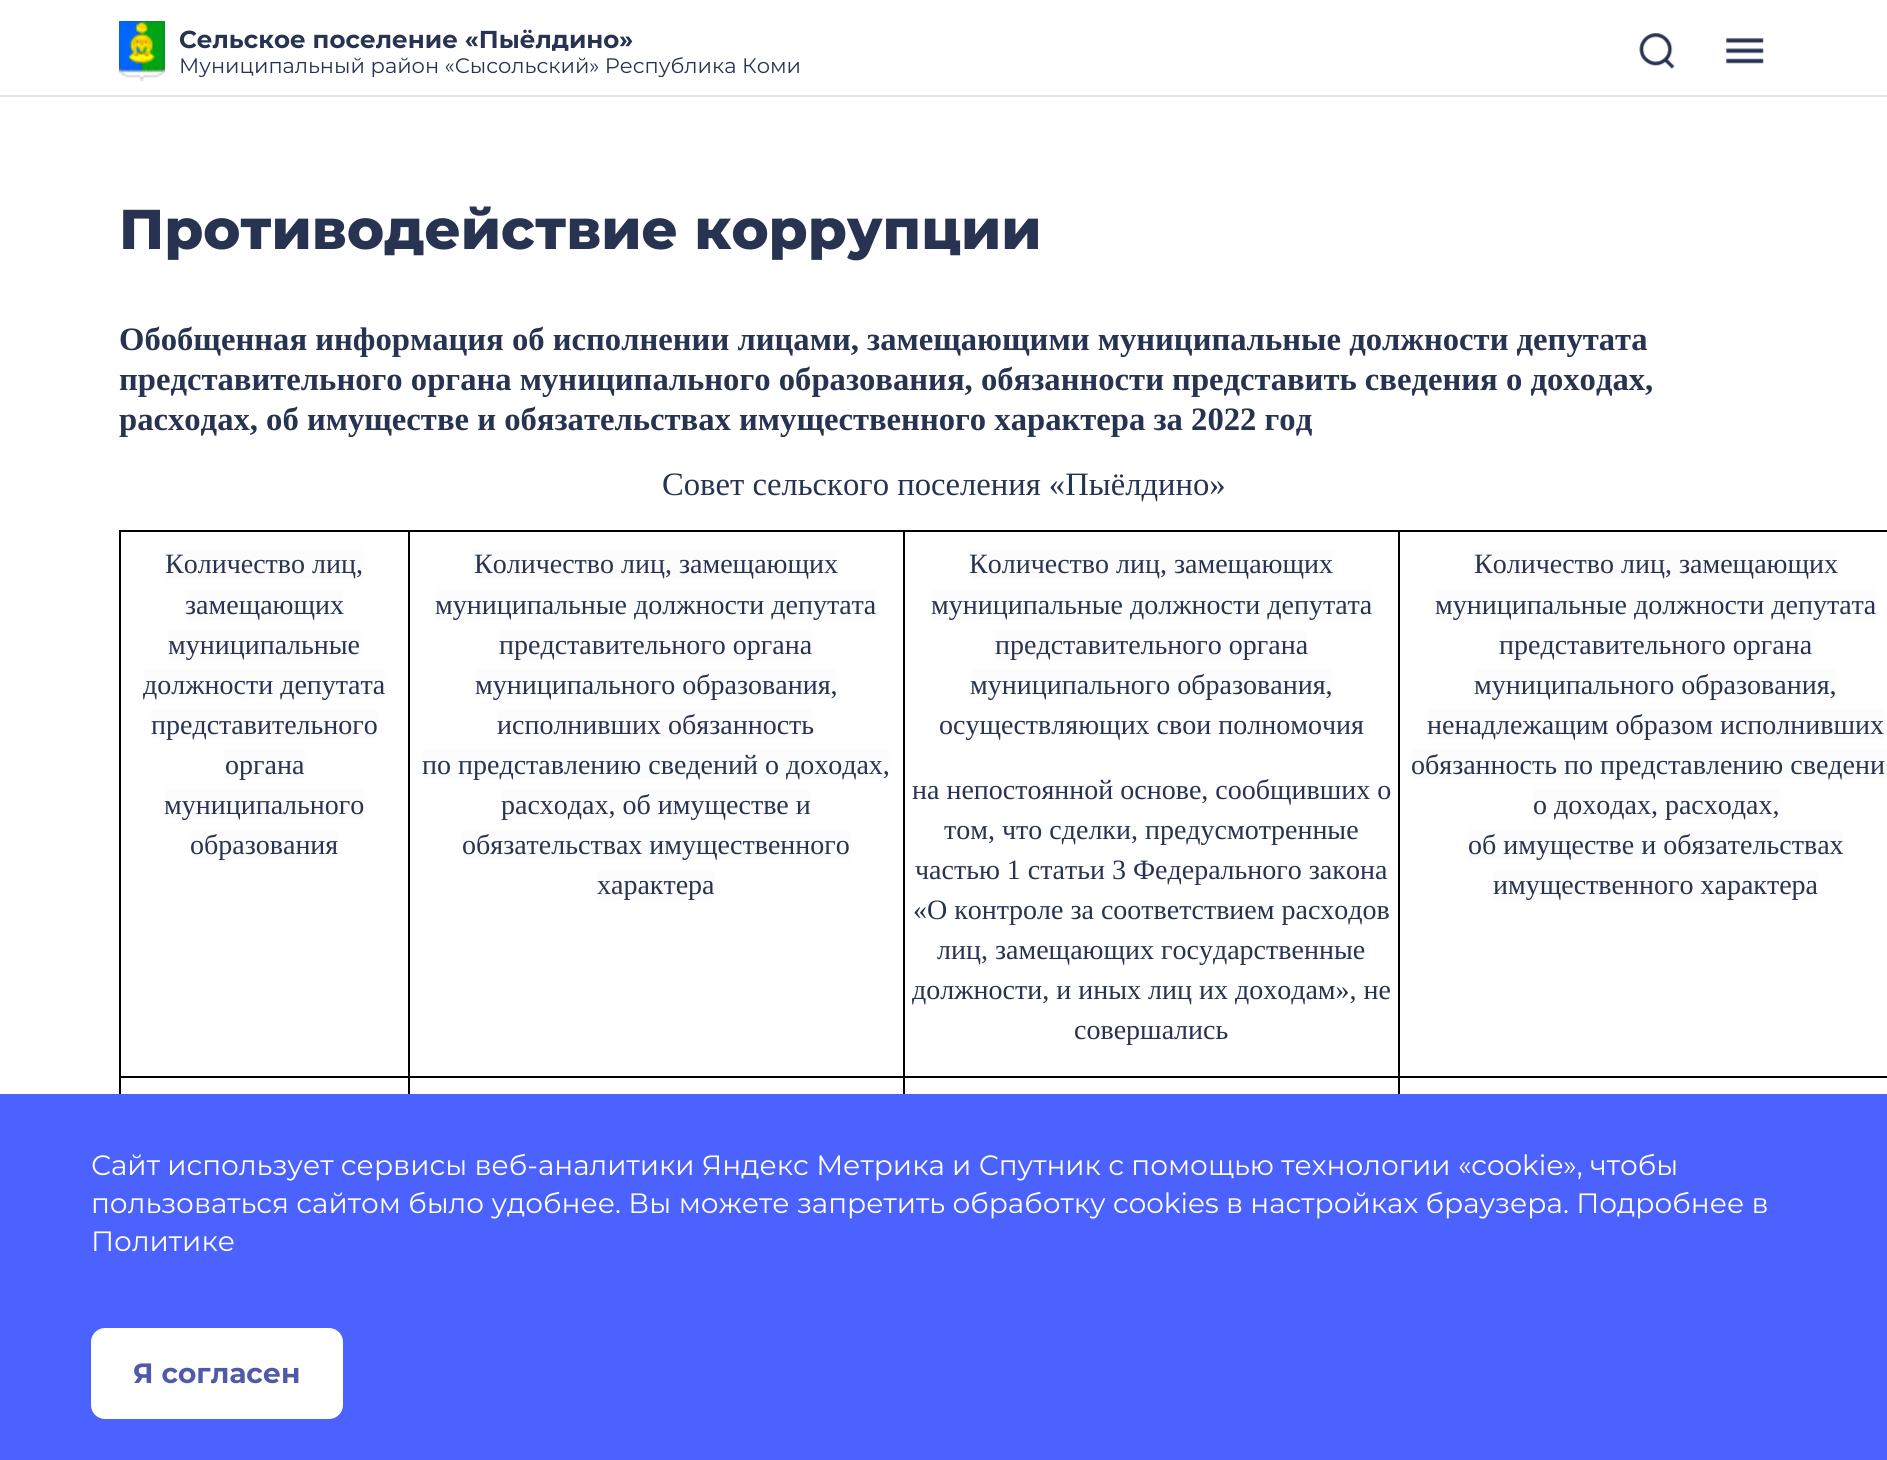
#include <cairo.h>
#include <math.h>
#include <stddef.h>


static void round_rect(cairo_t *cr, double x, double y, double w, double h, double r) {
    cairo_new_sub_path(cr);
    cairo_arc(cr, x + w - r, y + h - r, r, 0, M_PI / 2);
    cairo_arc(cr, x + r, y + h - r, r, M_PI / 2, M_PI);
    cairo_arc(cr, x + r, y + r, r, M_PI, 1.5 * M_PI);
    cairo_arc(cr, x + w - r, y + r, r, 1.5 * M_PI, 2 * M_PI);
    cairo_close_path(cr);
}

static void picture(cairo_t *cr, const char *path, double x, double y, double w, double h) {
    cairo_surface_t *image = cairo_image_surface_create_from_png(path);
    cairo_save(cr);
    cairo_set_source_surface(cr, image, x, y);
    cairo_rectangle(cr, x, y, w, h);
    cairo_fill(cr);
    cairo_restore(cr);
    cairo_surface_destroy(image);
}

int main(void) {
    cairo_surface_t *surface = cairo_image_surface_create(CAIRO_FORMAT_RGB24, 1887, 1460);
    cairo_t *cr = cairo_create(surface);
    cairo_font_options_t *options = cairo_font_options_create();
    cairo_font_options_set_hint_metrics(options, CAIRO_HINT_METRICS_OFF);
    cairo_font_options_set_hint_style(options, CAIRO_HINT_STYLE_NONE);
    cairo_set_font_options(cr, options);
    cairo_set_miter_limit(cr, 4);
    cairo_set_source_rgb(cr, 1, 1, 1);
    cairo_paint(cr);
    cairo_set_source_rgb(cr, 0.89, 0.89, 0.89);
    cairo_rectangle(cr, 0, 95, 1887, 2);
    cairo_fill(cr);
    picture(cr, "img1.png", 119, 21, 46, 60);
    cairo_select_font_face(cr, "Montserrat", CAIRO_FONT_SLANT_NORMAL, CAIRO_FONT_WEIGHT_BOLD);
    cairo_set_font_size(cr, 24.5);
    cairo_set_source_rgb(cr, 0.153, 0.2, 0.314);
    cairo_move_to(cr, 179, 48);
    cairo_show_text(cr, "Сельское поселение «Пыёлдино»");
    cairo_save(cr);
    cairo_rectangle(cr, 179, 56, 1415, 21);
    cairo_clip(cr);
    cairo_select_font_face(cr, "Montserrat", CAIRO_FONT_SLANT_NORMAL, CAIRO_FONT_WEIGHT_NORMAL);
    cairo_set_font_size(cr, 21);
    cairo_move_to(cr, 179, 73);
    cairo_show_text(cr, "Муниципальный район «Сысольский» Республика Коми");
    cairo_restore(cr);
    picture(cr, "img2.png", 1639, 33, 36, 36);
    picture(cr, "img3.png", 1726, 38, 38, 26);
    cairo_select_font_face(cr, "Montserrat ExtraBold", CAIRO_FONT_SLANT_NORMAL, CAIRO_FONT_WEIGHT_NORMAL);
    cairo_set_font_size(cr, 56);
    cairo_move_to(cr, 119, 249);
    cairo_show_text(cr, "Противодействие коррупции");
    cairo_select_font_face(cr, "Liberation Serif", CAIRO_FONT_SLANT_NORMAL, CAIRO_FONT_WEIGHT_BOLD);
    cairo_set_font_size(cr, 32.65);
    cairo_move_to(cr, 119, 350);
    cairo_show_text(cr, "Обобщенная информация об исполнении лицами, замещающими муниципальные должности депутата");
    cairo_move_to(cr, 119, 390);
    cairo_show_text(cr, "представительного органа муниципального образования, обязанности представить сведения о доходах,");
    cairo_move_to(cr, 119, 430);
    cairo_show_text(cr, "расходах, об имуществе и обязательствах имущественного характера за 2022 год");
    cairo_select_font_face(cr, "Liberation Serif", CAIRO_FONT_SLANT_NORMAL, CAIRO_FONT_WEIGHT_NORMAL);
    cairo_move_to(cr, 662, 495);
    cairo_show_text(cr, "Совет сельского поселения «Пыёлдино»");
    cairo_set_source_rgb(cr, 0, 0, 0);
    cairo_rectangle(cr, 119, 530, 1768, 2);
    cairo_fill(cr);
    cairo_rectangle(cr, 1398, 1076, 2, 18);
    cairo_fill(cr);
    cairo_rectangle(cr, 1398, 1076, 489, 2);
    cairo_fill(cr);
    cairo_rectangle(cr, 1398, 530, 2, 548);
    cairo_fill(cr);
    cairo_rectangle(cr, 903, 1076, 2, 18);
    cairo_fill(cr);
    cairo_rectangle(cr, 903, 1076, 497, 2);
    cairo_fill(cr);
    cairo_rectangle(cr, 903, 530, 2, 548);
    cairo_fill(cr);
    cairo_rectangle(cr, 408, 1076, 2, 18);
    cairo_fill(cr);
    cairo_rectangle(cr, 408, 1076, 497, 2);
    cairo_fill(cr);
    cairo_rectangle(cr, 408, 530, 2, 548);
    cairo_fill(cr);
    cairo_rectangle(cr, 119, 1076, 2, 18);
    cairo_fill(cr);
    cairo_rectangle(cr, 119, 1076, 291, 2);
    cairo_fill(cr);
    cairo_rectangle(cr, 119, 530, 2, 548);
    cairo_fill(cr);
    cairo_set_source_rgb(cr, 0.988, 0.988, 0.988);
    cairo_rectangle(cr, 165, 550, 199, 29);
    cairo_fill(cr);
    cairo_set_font_size(cr, 28);
    cairo_set_source_rgb(cr, 0.153, 0.2, 0.314);
    cairo_move_to(cr, 165, 573);
    cairo_show_text(cr, "Количество лиц,");
    cairo_set_source_rgb(cr, 0.988, 0.988, 0.988);
    cairo_rectangle(cr, 186, 590, 157, 30);
    cairo_fill(cr);
    cairo_set_source_rgb(cr, 0.153, 0.2, 0.314);
    cairo_move_to(cr, 185, 614);
    cairo_show_text(cr, "замещающих");
    cairo_set_source_rgb(cr, 0.988, 0.988, 0.988);
    cairo_rectangle(cr, 168, 630, 193, 30);
    cairo_fill(cr);
    cairo_set_source_rgb(cr, 0.153, 0.2, 0.314);
    cairo_move_to(cr, 168, 654);
    cairo_show_text(cr, "муниципальные");
    cairo_set_source_rgb(cr, 0.988, 0.988, 0.988);
    cairo_rectangle(cr, 144, 669, 241, 29);
    cairo_fill(cr);
    cairo_set_source_rgb(cr, 0.153, 0.2, 0.314);
    cairo_move_to(cr, 143, 694);
    cairo_show_text(cr, "должности депутата");
    cairo_set_source_rgb(cr, 0.988, 0.988, 0.988);
    cairo_rectangle(cr, 151, 709, 227, 30);
    cairo_fill(cr);
    cairo_set_source_rgb(cr, 0.153, 0.2, 0.314);
    cairo_move_to(cr, 151, 734);
    cairo_show_text(cr, "представительного");
    cairo_set_source_rgb(cr, 0.988, 0.988, 0.988);
    cairo_rectangle(cr, 224, 749, 81, 30);
    cairo_fill(cr);
    cairo_set_source_rgb(cr, 0.153, 0.2, 0.314);
    cairo_move_to(cr, 225, 774);
    cairo_show_text(cr, "органа");
    cairo_set_source_rgb(cr, 0.988, 0.988, 0.988);
    cairo_rectangle(cr, 165, 789, 199, 30);
    cairo_fill(cr);
    cairo_set_source_rgb(cr, 0.153, 0.2, 0.314);
    cairo_move_to(cr, 164, 814);
    cairo_show_text(cr, "муниципального");
    cairo_set_source_rgb(cr, 0.988, 0.988, 0.988);
    cairo_rectangle(cr, 191, 830, 147, 29);
    cairo_fill(cr);
    cairo_set_source_rgb(cr, 0.153, 0.2, 0.314);
    cairo_move_to(cr, 190, 854);
    cairo_show_text(cr, "образования");
    cairo_set_source_rgb(cr, 0.988, 0.988, 0.988);
    cairo_rectangle(cr, 474, 550, 364, 29);
    cairo_fill(cr);
    cairo_set_source_rgb(cr, 0.153, 0.2, 0.314);
    cairo_move_to(cr, 474, 573);
    cairo_show_text(cr, "Количество лиц, замещающих");
    cairo_set_source_rgb(cr, 0.988, 0.988, 0.988);
    cairo_rectangle(cr, 436, 590, 441, 30);
    cairo_fill(cr);
    cairo_set_source_rgb(cr, 0.153, 0.2, 0.314);
    cairo_move_to(cr, 435, 614);
    cairo_show_text(cr, "муниципальные должности депутата");
    cairo_set_source_rgb(cr, 0.988, 0.988, 0.988);
    cairo_rectangle(cr, 499, 630, 313, 30);
    cairo_fill(cr);
    cairo_set_source_rgb(cr, 0.153, 0.2, 0.314);
    cairo_move_to(cr, 499, 654);
    cairo_show_text(cr, "представительного органа");
    cairo_set_source_rgb(cr, 0.988, 0.988, 0.988);
    cairo_rectangle(cr, 474, 669, 363, 29);
    cairo_fill(cr);
    cairo_set_source_rgb(cr, 0.153, 0.2, 0.314);
    cairo_move_to(cr, 475, 694);
    cairo_show_text(cr, "муниципального образования,");
    cairo_set_source_rgb(cr, 0.988, 0.988, 0.988);
    cairo_rectangle(cr, 497, 709, 317, 30);
    cairo_fill(cr);
    cairo_set_source_rgb(cr, 0.153, 0.2, 0.314);
    cairo_move_to(cr, 497, 734);
    cairo_show_text(cr, "исполнивших обязанность");
    cairo_set_source_rgb(cr, 0.988, 0.988, 0.988);
    cairo_rectangle(cr, 422, 749, 467, 30);
    cairo_fill(cr);
    cairo_set_source_rgb(cr, 0.153, 0.2, 0.314);
    cairo_move_to(cr, 422, 774);
    cairo_show_text(cr, "по представлению сведений о доходах,");
    cairo_set_source_rgb(cr, 0.988, 0.988, 0.988);
    cairo_rectangle(cr, 501, 789, 309, 30);
    cairo_fill(cr);
    cairo_set_source_rgb(cr, 0.153, 0.2, 0.314);
    cairo_move_to(cr, 501, 814);
    cairo_show_text(cr, "расходах, об имуществе и");
    cairo_set_source_rgb(cr, 0.988, 0.988, 0.988);
    cairo_rectangle(cr, 462, 830, 389, 29);
    cairo_fill(cr);
    cairo_set_source_rgb(cr, 0.153, 0.2, 0.314);
    cairo_move_to(cr, 462, 854);
    cairo_show_text(cr, "обязательствах имущественного");
    cairo_set_source_rgb(cr, 0.988, 0.988, 0.988);
    cairo_rectangle(cr, 597, 870, 117, 30);
    cairo_fill(cr);
    cairo_set_source_rgb(cr, 0.153, 0.2, 0.314);
    cairo_move_to(cr, 597, 894);
    cairo_show_text(cr, "характера");
    cairo_set_source_rgb(cr, 0.988, 0.988, 0.988);
    cairo_rectangle(cr, 970, 550, 364, 29);
    cairo_fill(cr);
    cairo_set_source_rgb(cr, 0.153, 0.2, 0.314);
    cairo_move_to(cr, 969, 573);
    cairo_show_text(cr, "Количество лиц, замещающих");
    cairo_set_source_rgb(cr, 0.988, 0.988, 0.988);
    cairo_rectangle(cr, 931, 590, 441, 30);
    cairo_fill(cr);
    cairo_set_source_rgb(cr, 0.153, 0.2, 0.314);
    cairo_move_to(cr, 931, 614);
    cairo_show_text(cr, "муниципальные должности депутата");
    cairo_set_source_rgb(cr, 0.988, 0.988, 0.988);
    cairo_rectangle(cr, 994, 630, 313, 30);
    cairo_fill(cr);
    cairo_set_source_rgb(cr, 0.153, 0.2, 0.314);
    cairo_move_to(cr, 995, 654);
    cairo_show_text(cr, "представительного органа");
    cairo_set_source_rgb(cr, 0.988, 0.988, 0.988);
    cairo_rectangle(cr, 970, 669, 364, 29);
    cairo_fill(cr);
    cairo_set_source_rgb(cr, 0.153, 0.2, 0.314);
    cairo_move_to(cr, 970, 694);
    cairo_show_text(cr, "муниципального образования,");
    cairo_move_to(cr, 939, 734);
    cairo_show_text(cr, "осуществляющих свои полномочия");
    cairo_move_to(cr, 912, 799);
    cairo_show_text(cr, "на непостоянной основе, сообщивших о");
    cairo_move_to(cr, 944, 839);
    cairo_show_text(cr, "том, что сделки, предусмотренные");
    cairo_move_to(cr, 915, 879);
    cairo_show_text(cr, "частью 1 статьи 3 Федерального закона");
    cairo_move_to(cr, 913, 919);
    cairo_show_text(cr, "«О контроле за соответствием расходов");
    cairo_move_to(cr, 937, 959);
    cairo_show_text(cr, "лиц, замещающих государственные");
    cairo_move_to(cr, 912, 999);
    cairo_show_text(cr, "должности, и иных лиц их доходам», не");
    cairo_move_to(cr, 1074, 1039);
    cairo_show_text(cr, "совершались");
    cairo_set_source_rgb(cr, 0.988, 0.988, 0.988);
    cairo_rectangle(cr, 1474, 550, 364, 29);
    cairo_fill(cr);
    cairo_set_source_rgb(cr, 0.153, 0.2, 0.314);
    cairo_move_to(cr, 1474, 573);
    cairo_show_text(cr, "Количество лиц, замещающих");
    cairo_set_source_rgb(cr, 0.988, 0.988, 0.988);
    cairo_rectangle(cr, 1435, 590, 441, 30);
    cairo_fill(cr);
    cairo_set_source_rgb(cr, 0.153, 0.2, 0.314);
    cairo_move_to(cr, 1435, 614);
    cairo_show_text(cr, "муниципальные должности депутата");
    cairo_set_source_rgb(cr, 0.988, 0.988, 0.988);
    cairo_rectangle(cr, 1500, 630, 313, 30);
    cairo_fill(cr);
    cairo_set_source_rgb(cr, 0.153, 0.2, 0.314);
    cairo_move_to(cr, 1499, 654);
    cairo_show_text(cr, "представительного органа");
    cairo_set_source_rgb(cr, 0.988, 0.988, 0.988);
    cairo_rectangle(cr, 1475, 669, 363, 29);
    cairo_fill(cr);
    cairo_set_source_rgb(cr, 0.153, 0.2, 0.314);
    cairo_move_to(cr, 1474, 694);
    cairo_show_text(cr, "муниципального образования,");
    cairo_set_source_rgb(cr, 0.988, 0.988, 0.988);
    cairo_rectangle(cr, 1428, 709, 457, 30);
    cairo_fill(cr);
    cairo_set_source_rgb(cr, 0.153, 0.2, 0.314);
    cairo_move_to(cr, 1427, 734);
    cairo_show_text(cr, "ненадлежащим образом исполнивших");
    cairo_set_source_rgb(cr, 0.988, 0.988, 0.988);
    cairo_rectangle(cr, 1411, 749, 476, 30);
    cairo_fill(cr);
    cairo_set_source_rgb(cr, 0.153, 0.2, 0.314);
    cairo_move_to(cr, 1411, 774);
    cairo_show_text(cr, "обязанность по представлению сведени");
    cairo_set_source_rgb(cr, 0.988, 0.988, 0.988);
    cairo_rectangle(cr, 1533, 789, 247, 30);
    cairo_fill(cr);
    cairo_set_source_rgb(cr, 0.153, 0.2, 0.314);
    cairo_move_to(cr, 1533, 814);
    cairo_show_text(cr, "о доходах, расходах,");
    cairo_set_source_rgb(cr, 0.988, 0.988, 0.988);
    cairo_rectangle(cr, 1468, 830, 375, 29);
    cairo_fill(cr);
    cairo_set_source_rgb(cr, 0.153, 0.2, 0.314);
    cairo_move_to(cr, 1468, 854);
    cairo_show_text(cr, "об имуществе и обязательствах");
    cairo_set_source_rgb(cr, 0.988, 0.988, 0.988);
    cairo_rectangle(cr, 1493, 870, 325, 30);
    cairo_fill(cr);
    cairo_set_source_rgb(cr, 0.153, 0.2, 0.314);
    cairo_move_to(cr, 1493, 894);
    cairo_show_text(cr, "имущественного характера");
    cairo_set_source_rgb(cr, 0.294, 0.384, 1);
    cairo_rectangle(cr, 0, 1094, 1887, 366);
    cairo_fill(cr);
    cairo_select_font_face(cr, "Montserrat", CAIRO_FONT_SLANT_NORMAL, CAIRO_FONT_WEIGHT_NORMAL);
    cairo_set_source_rgb(cr, 1, 1, 1);
    cairo_move_to(cr, 91, 1175);
    cairo_show_text(cr, "Сайт использует сервисы веб-аналитики Яндекс Метрика и Спутник с помощью технологии «cookie», чтобы");
    cairo_move_to(cr, 91, 1213);
    cairo_show_text(cr, "пользоваться сайтом было удобнее. Вы можете запретить обработку cookies в настройках браузера. Подробнее в");
    cairo_move_to(cr, 91, 1251);
    cairo_show_text(cr, "Политике");
    round_rect(cr, 91, 1328, 252, 91, 14);
    cairo_fill(cr);
    cairo_select_font_face(cr, "Montserrat", CAIRO_FONT_SLANT_NORMAL, CAIRO_FONT_WEIGHT_BOLD);
    cairo_set_source_rgb(cr, 0.31, 0.353, 0.659);
    cairo_move_to(cr, 133, 1383);
    cairo_show_text(cr, "Я согласен");
    cairo_surface_write_to_png(surface, "page.png");
    cairo_font_options_destroy(options);
    cairo_destroy(cr);
    cairo_surface_destroy(surface);
    return 0;
}
